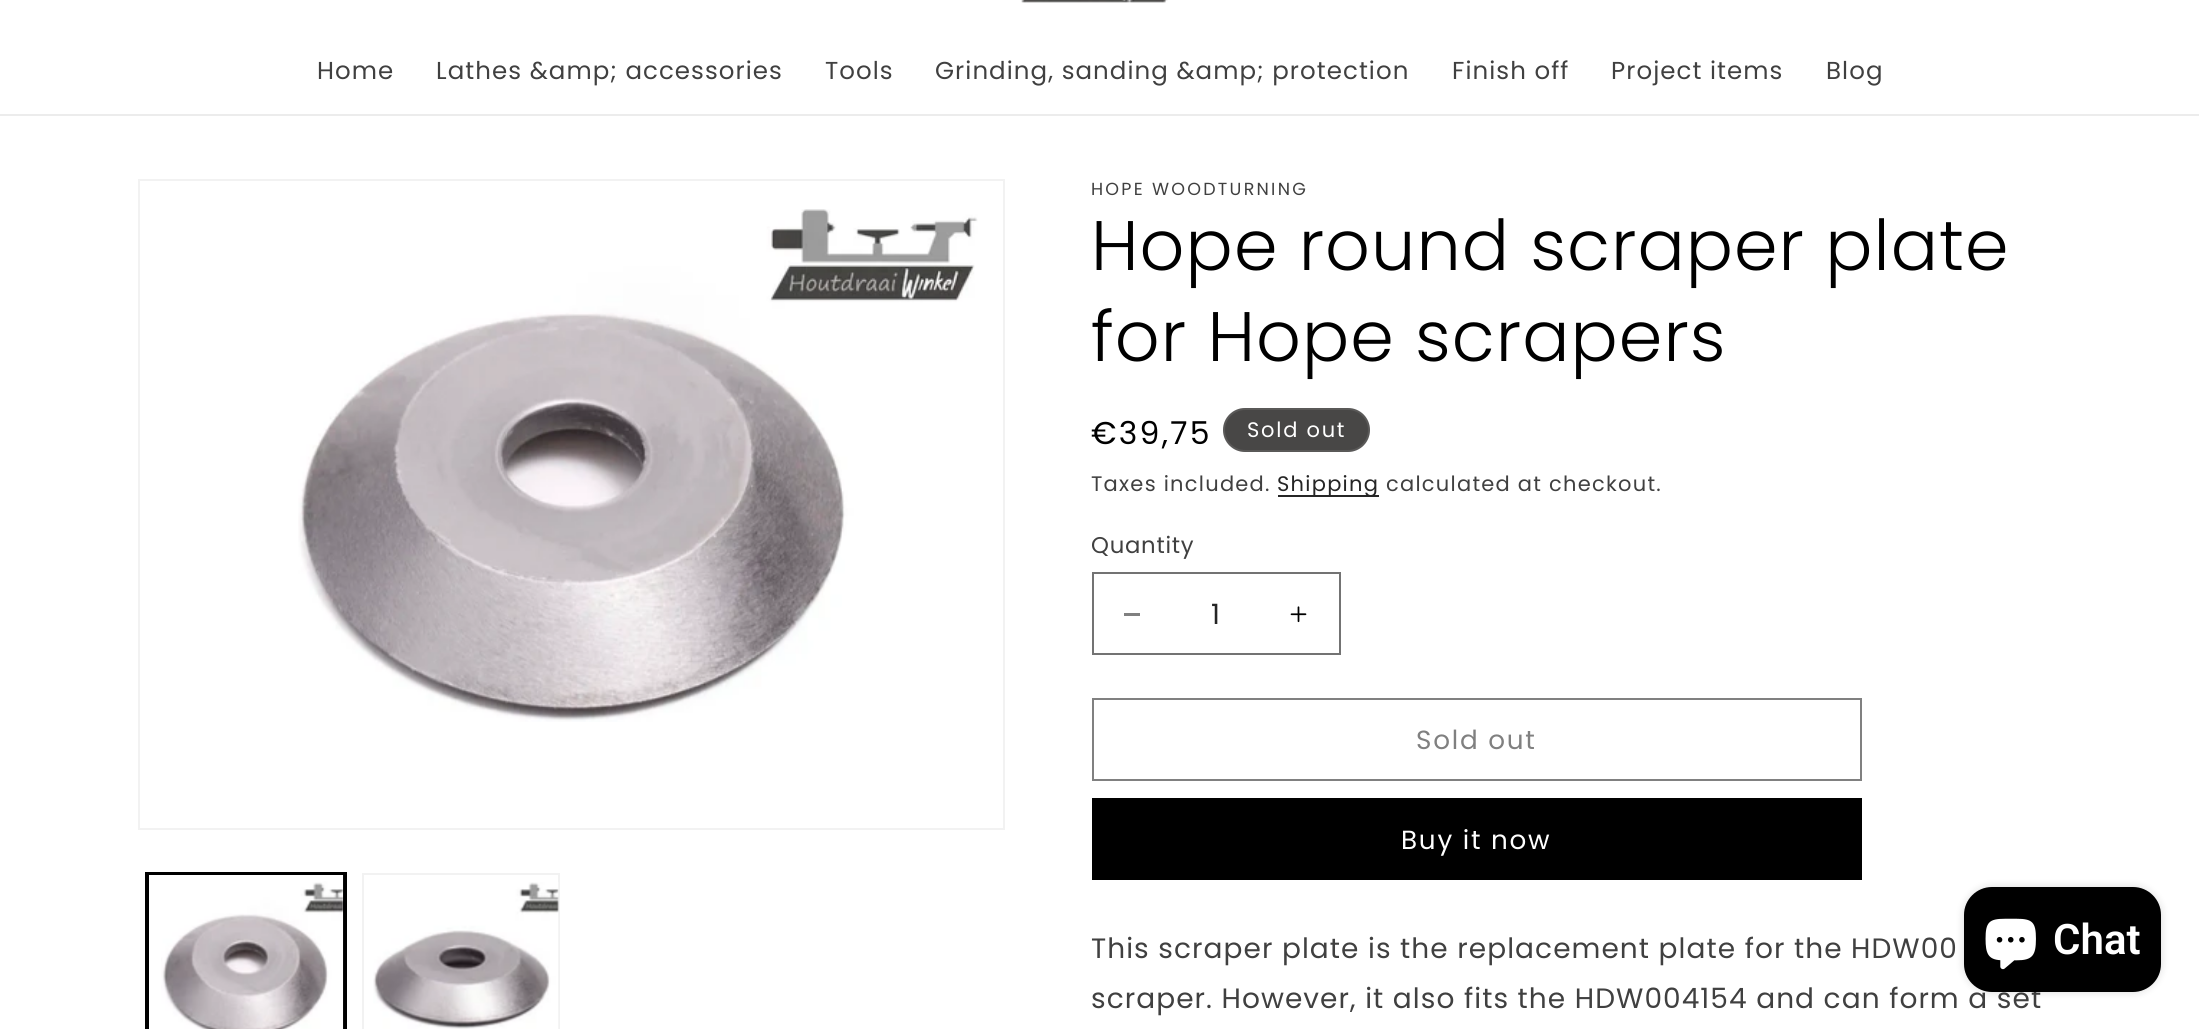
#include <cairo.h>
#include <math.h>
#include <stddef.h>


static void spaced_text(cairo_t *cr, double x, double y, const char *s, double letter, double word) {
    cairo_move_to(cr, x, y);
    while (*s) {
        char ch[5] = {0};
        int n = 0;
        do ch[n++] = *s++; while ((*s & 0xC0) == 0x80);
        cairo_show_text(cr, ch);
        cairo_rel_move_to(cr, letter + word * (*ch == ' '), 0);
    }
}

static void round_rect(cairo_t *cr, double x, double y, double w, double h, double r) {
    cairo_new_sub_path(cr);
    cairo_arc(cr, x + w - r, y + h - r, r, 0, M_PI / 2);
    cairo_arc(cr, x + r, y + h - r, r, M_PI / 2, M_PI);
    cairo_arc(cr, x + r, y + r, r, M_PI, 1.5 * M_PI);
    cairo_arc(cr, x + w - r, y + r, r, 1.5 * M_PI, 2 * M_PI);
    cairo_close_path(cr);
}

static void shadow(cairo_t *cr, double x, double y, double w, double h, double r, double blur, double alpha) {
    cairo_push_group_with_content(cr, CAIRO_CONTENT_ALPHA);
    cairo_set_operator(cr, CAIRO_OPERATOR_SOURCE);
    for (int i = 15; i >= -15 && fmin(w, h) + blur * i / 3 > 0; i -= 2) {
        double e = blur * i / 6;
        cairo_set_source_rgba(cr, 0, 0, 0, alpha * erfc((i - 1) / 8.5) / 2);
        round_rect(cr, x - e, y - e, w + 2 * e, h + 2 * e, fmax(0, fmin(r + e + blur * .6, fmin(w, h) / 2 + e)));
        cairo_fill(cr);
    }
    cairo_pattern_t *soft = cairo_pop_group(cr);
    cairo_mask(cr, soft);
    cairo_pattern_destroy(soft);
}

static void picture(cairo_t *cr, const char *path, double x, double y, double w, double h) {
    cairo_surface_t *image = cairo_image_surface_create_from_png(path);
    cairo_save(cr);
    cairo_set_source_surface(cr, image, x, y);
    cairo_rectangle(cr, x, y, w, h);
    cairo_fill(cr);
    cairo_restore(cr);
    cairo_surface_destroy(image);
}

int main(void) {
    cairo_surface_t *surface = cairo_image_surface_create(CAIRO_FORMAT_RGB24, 2199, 1029);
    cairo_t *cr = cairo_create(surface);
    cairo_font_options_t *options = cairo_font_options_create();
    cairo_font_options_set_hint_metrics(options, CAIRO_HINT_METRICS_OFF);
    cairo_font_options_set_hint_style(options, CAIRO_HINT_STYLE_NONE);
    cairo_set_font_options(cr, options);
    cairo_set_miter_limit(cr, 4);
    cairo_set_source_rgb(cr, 1, 1, 1);
    cairo_paint(cr);
    cairo_set_source_rgb(cr, 0.922, 0.922, 0.922);
    cairo_rectangle(cr, 0, 114, 2199, 2);
    cairo_fill(cr);
    picture(cr, "img1.png", 1021, 0, 147, 3);
    cairo_select_font_face(cr, "Poppins", CAIRO_FONT_SLANT_NORMAL, CAIRO_FONT_WEIGHT_NORMAL);
    cairo_set_font_size(cr, 24.5);
    cairo_set_source_rgb(cr, 0.251, 0.251, 0.251);
    spaced_text(cr, 317, 79, "Home", 1.05, 0);
    spaced_text(cr, 436, 79, "Lathes &amp; accessories", 1.05, 0);
    spaced_text(cr, 825, 79, "Tools", 1.05, 0);
    spaced_text(cr, 935, 79, "Grinding, sanding &amp; protection", 1.05, 0);
    spaced_text(cr, 1452, 79, "Finish off", 1.05, 0);
    spaced_text(cr, 1611, 79, "Project items", 1.05, 0);
    spaced_text(cr, 1826, 79, "Blog", 1.05, 0);
    cairo_rectangle(cr, 139, 180, 865, 649);
    cairo_set_source_rgb(cr, 0.949, 0.949, 0.949);
    cairo_stroke(cr);
    picture(cr, "img2.png", 298, 209, 680, 513);
    cairo_rectangle(cr, 146, 873, 200, 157);
    cairo_set_source_rgb(cr, 0, 0, 0);
    cairo_stroke(cr);
    cairo_rectangle(cr, 148, 874, 196, 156);
    cairo_stroke(cr);
    picture(cr, "img3.png", 161, 875, 183, 154);
    cairo_rectangle(cr, 363, 874, 196, 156);
    cairo_set_source_rgb(cr, 0.949, 0.949, 0.949);
    cairo_stroke(cr);
    picture(cr, "img4.png", 373, 882, 186, 147);
    cairo_set_font_size(cr, 17.5);
    cairo_set_source_rgb(cr, 0.251, 0.251, 0.251);
    spaced_text(cr, 1091, 195, "HOPE WOODTURNING", 2.25, 0);
    cairo_select_font_face(cr, "Poppins Light", CAIRO_FONT_SLANT_NORMAL, CAIRO_FONT_WEIGHT_NORMAL);
    cairo_set_font_size(cr, 70);
    cairo_set_source_rgb(cr, 0, 0, 0);
    spaced_text(cr, 1091, 270, "Hope round scraper plate", 1.05, 0);
    spaced_text(cr, 1091, 361, "for Hope scrapers", 1.05, 0);
    cairo_select_font_face(cr, "Poppins", CAIRO_FONT_SLANT_NORMAL, CAIRO_FONT_WEIGHT_NORMAL);
    cairo_set_font_size(cr, 31.5);
    spaced_text(cr, 1091, 444, "€39,75", 2.25, 0);
    cairo_set_source_rgb(cr, 0.282, 0.278, 0.275);
    round_rect(cr, 1223, 408, 147, 44, 22);
    cairo_fill(cr);
    round_rect(cr, 1224, 409, 145, 42, 21);
    cairo_set_source_rgba(cr, 1, 1, 1, 0.1);
    cairo_stroke(cr);
    cairo_set_font_size(cr, 21);
    cairo_set_source_rgb(cr, 1, 1, 1);
    spaced_text(cr, 1247, 437, "Sold out", 1.75, 0);
    cairo_set_source_rgb(cr, 0.251, 0.251, 0.251);
    spaced_text(cr, 1091, 491, "Taxes included.", 1.25, 0);
    cairo_set_source_rgb(cr, 0.149, 0.149, 0.149);
    cairo_rectangle(cr, 1278, 495, 101, 2);
    cairo_fill(cr);
    cairo_set_source_rgb(cr, 0.145, 0.145, 0.145);
    spaced_text(cr, 1277, 491, "Shipping", 1.25, 0);
    cairo_set_source_rgb(cr, 0.251, 0.251, 0.251);
    spaced_text(cr, 1386, 491, "calculated at checkout.", 1.25, 0);
    cairo_set_font_size(cr, 22.75);
    spaced_text(cr, 1091, 553, "Quantity", 0.75, 0);
    cairo_set_source_rgb(cr, 0.502, 0.502, 0.502);
    cairo_rectangle(cr, 1124, 613, 16, 3);
    cairo_fill(cr);
    picture(cr, "img5.png", 1290, 606, 17, 17);
    cairo_rectangle(cr, 1093, 573, 247, 81);
    cairo_set_source_rgb(cr, 0.451, 0.451, 0.451);
    cairo_stroke(cr);
    cairo_set_font_size(cr, 28);
    cairo_set_source_rgb(cr, 0.145, 0.145, 0.145);
    cairo_move_to(cr, 1211, 624);
    cairo_show_text(cr, "1");
    cairo_rectangle(cr, 1093, 699, 768, 81);
    cairo_set_source_rgb(cr, 0.502, 0.502, 0.502);
    cairo_stroke(cr);
    cairo_set_font_size(cr, 26.25);
    spaced_text(cr, 1416, 749, "Sold out", 1.75, 0);
    cairo_set_source_rgb(cr, 0, 0, 0);
    cairo_rectangle(cr, 1092, 798, 770, 82);
    cairo_fill(cr);
    cairo_set_source_rgb(cr, 1, 1, 1);
    spaced_text(cr, 1401, 849, "Buy it now", 1.75, 0);
    cairo_set_font_size(cr, 28);
    cairo_set_source_rgb(cr, 0.251, 0.251, 0.251);
    spaced_text(cr, 1091, 958, "This scraper plate is the replacement plate for the HDW00", 1.05, 0);
    spaced_text(cr, 1091, 1008, "scraper. However, it also fits the HDW004154 and can form a set", 1.05, 0);
    cairo_set_source_rgb(cr, 0, 0, 0);
    shadow(cr, 1964, 887, 197, 105, 28, 4.5, 0.15);
    cairo_set_source_rgb(cr, 0, 0, 0);
    round_rect(cr, 1964, 887, 197, 105, 28);
    cairo_fill(cr);
    picture(cr, "img6.png", 1985, 918, 51, 52);
    cairo_select_font_face(cr, "Roboto SemiBold", CAIRO_FONT_SLANT_NORMAL, CAIRO_FONT_WEIGHT_NORMAL);
    cairo_set_font_size(cr, 42);
    cairo_set_source_rgb(cr, 1, 1, 1);
    cairo_move_to(cr, 2053, 954);
    cairo_show_text(cr, "Chat");
    cairo_surface_write_to_png(surface, "page.png");
    cairo_font_options_destroy(options);
    cairo_destroy(cr);
    cairo_surface_destroy(surface);
    return 0;
}
